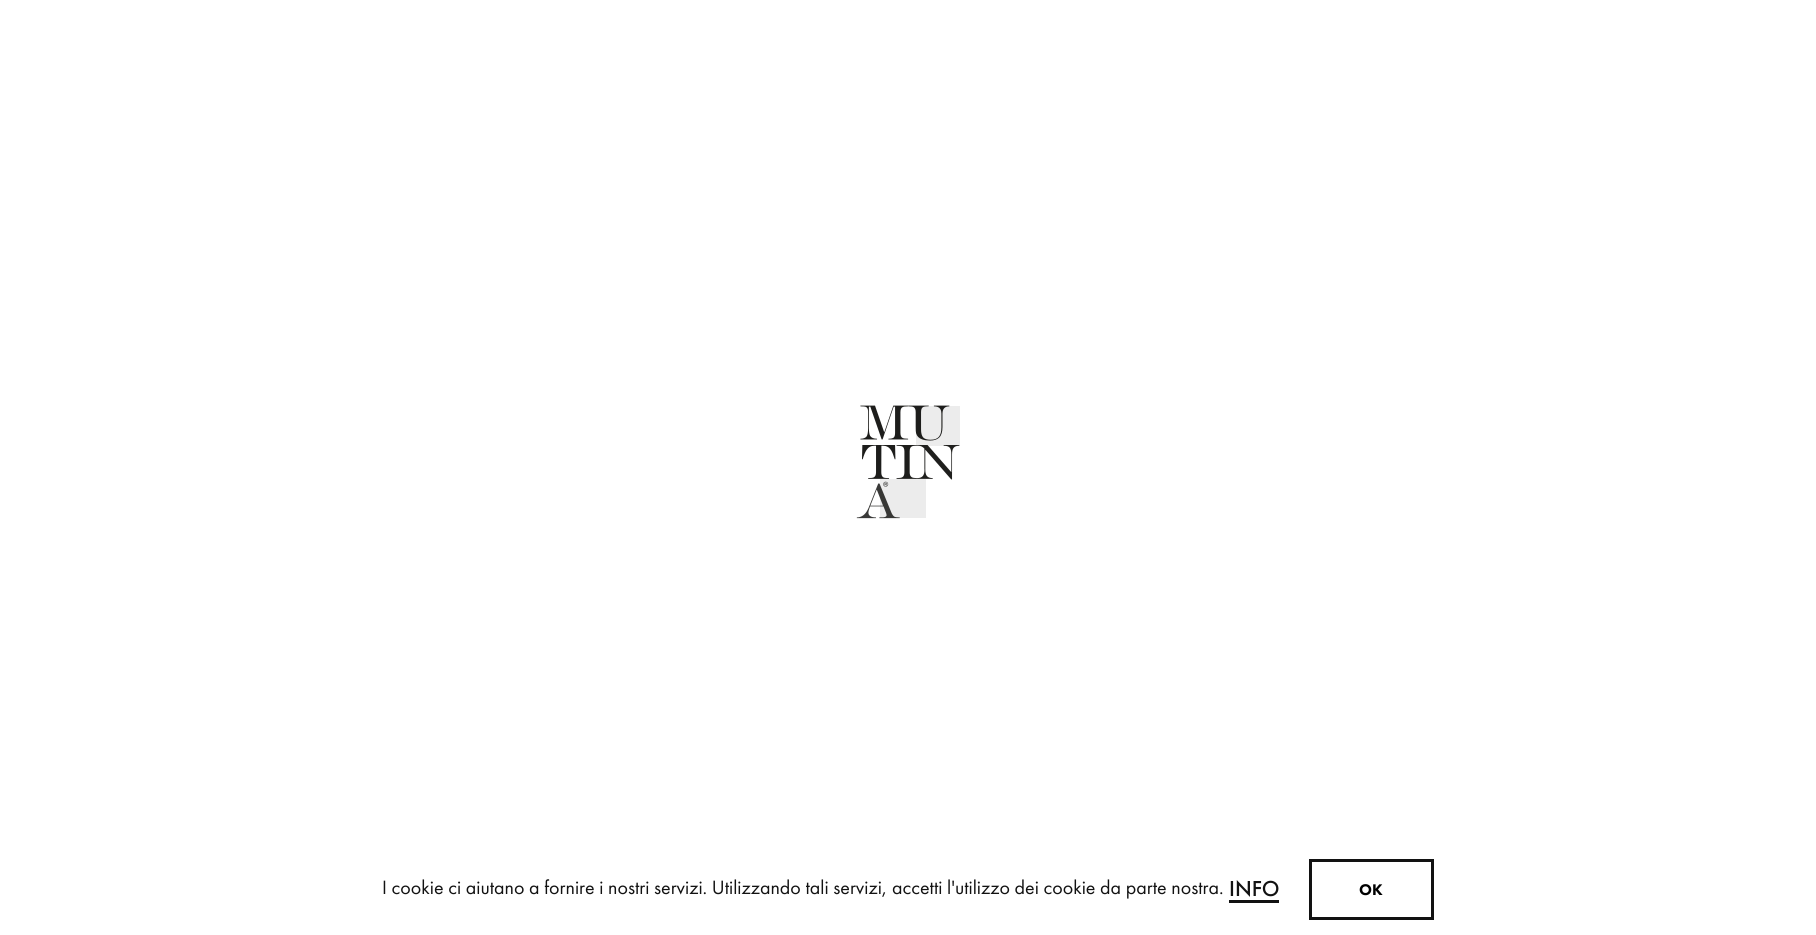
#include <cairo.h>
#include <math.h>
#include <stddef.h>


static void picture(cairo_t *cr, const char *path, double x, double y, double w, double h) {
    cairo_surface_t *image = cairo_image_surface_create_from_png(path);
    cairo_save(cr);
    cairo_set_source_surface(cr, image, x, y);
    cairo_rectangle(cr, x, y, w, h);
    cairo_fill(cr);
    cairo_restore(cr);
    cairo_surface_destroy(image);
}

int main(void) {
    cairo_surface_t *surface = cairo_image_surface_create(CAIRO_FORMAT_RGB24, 1816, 935);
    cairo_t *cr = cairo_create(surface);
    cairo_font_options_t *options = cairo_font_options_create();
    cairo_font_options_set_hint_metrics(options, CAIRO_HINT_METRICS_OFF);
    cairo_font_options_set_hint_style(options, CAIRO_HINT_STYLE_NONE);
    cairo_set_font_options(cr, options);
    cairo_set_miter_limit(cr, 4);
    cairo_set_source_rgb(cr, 1, 1, 1);
    cairo_paint(cr);
    picture(cr, "img1.png", 856, 405, 104, 114);
    cairo_select_font_face(cr, "Futura PT", CAIRO_FONT_SLANT_NORMAL, CAIRO_FONT_WEIGHT_NORMAL);
    cairo_set_font_size(cr, 20);
    cairo_set_source_rgb(cr, 0.071, 0.071, 0.071);
    cairo_move_to(cr, 382, 894);
    cairo_show_text(cr, "I cookie ci aiutano a fornire i nostri servizi. Utilizzando tali servizi, accetti l'utilizzo dei cookie da parte nostra.");
    cairo_select_font_face(cr, "Futura PT Medium", CAIRO_FONT_SLANT_NORMAL, CAIRO_FONT_WEIGHT_NORMAL);
    cairo_set_font_size(cr, 22.5);
    cairo_move_to(cr, 1229, 896);
    cairo_show_text(cr, "INFO");
    cairo_rectangle(cr, 1229, 900, 50, 3);
    cairo_fill(cr);
    cairo_rectangle(cr, 1310.5, 860.5, 122, 58);
    cairo_set_line_width(cr, 3);
    cairo_stroke(cr);
    cairo_select_font_face(cr, "Futura PT Black", CAIRO_FONT_SLANT_NORMAL, CAIRO_FONT_WEIGHT_NORMAL);
    cairo_set_font_size(cr, 16);
    cairo_set_source_rgb(cr, 0, 0, 0);
    cairo_move_to(cr, 1359, 895);
    cairo_show_text(cr, "OK");
    cairo_surface_write_to_png(surface, "page.png");
    cairo_font_options_destroy(options);
    cairo_destroy(cr);
    cairo_surface_destroy(surface);
    return 0;
}
